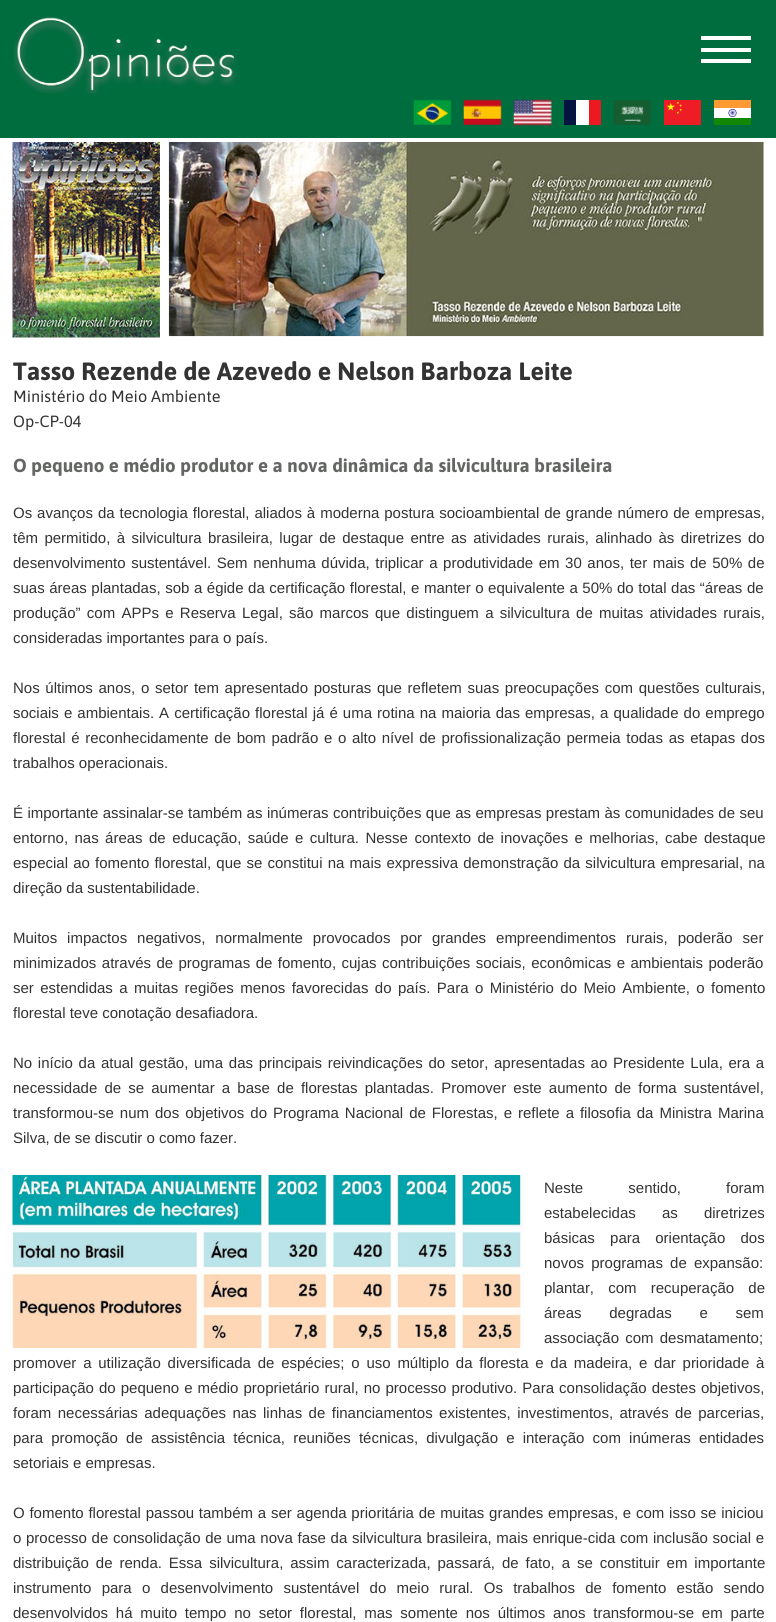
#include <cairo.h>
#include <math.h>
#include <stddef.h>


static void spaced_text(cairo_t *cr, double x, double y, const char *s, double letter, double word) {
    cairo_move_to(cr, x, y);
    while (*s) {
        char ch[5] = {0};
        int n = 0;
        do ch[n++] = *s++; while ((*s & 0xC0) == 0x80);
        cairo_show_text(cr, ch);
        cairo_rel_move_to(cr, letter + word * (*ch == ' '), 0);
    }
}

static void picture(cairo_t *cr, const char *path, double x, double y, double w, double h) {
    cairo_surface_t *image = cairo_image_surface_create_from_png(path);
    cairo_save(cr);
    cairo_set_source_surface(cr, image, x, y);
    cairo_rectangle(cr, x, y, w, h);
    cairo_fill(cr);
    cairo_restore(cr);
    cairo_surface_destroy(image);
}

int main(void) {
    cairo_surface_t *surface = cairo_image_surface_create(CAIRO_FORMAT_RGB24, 776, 1622);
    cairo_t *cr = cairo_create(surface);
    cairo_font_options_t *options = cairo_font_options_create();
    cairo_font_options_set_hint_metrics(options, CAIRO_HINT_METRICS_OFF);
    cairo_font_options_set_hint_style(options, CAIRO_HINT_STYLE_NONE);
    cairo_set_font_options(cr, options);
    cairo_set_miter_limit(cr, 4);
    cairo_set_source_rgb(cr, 1, 1, 1);
    cairo_paint(cr);
    cairo_set_source_rgb(cr, 0, 0.427, 0.247);
    cairo_rectangle(cr, 0, 0, 776, 138);
    cairo_fill(cr);
    picture(cr, "img1.png", 13, 16, 225, 78);
    cairo_set_source_rgb(cr, 1, 1, 1);
    cairo_rectangle(cr, 701, 48, 50, 4);
    cairo_fill(cr);
    cairo_rectangle(cr, 701, 36, 50, 4);
    cairo_fill(cr);
    cairo_rectangle(cr, 701, 59, 50, 4);
    cairo_fill(cr);
    picture(cr, "img2.png", 413, 99, 39, 26);
    picture(cr, "img3.png", 463, 99, 39, 26);
    picture(cr, "img4.png", 513, 99, 39, 27);
    cairo_set_source_rgb(cr, 0.925, 0.098, 0.125);
    cairo_rectangle(cr, 589, 100, 12, 25);
    cairo_fill(cr);
    cairo_set_source_rgb(cr, 1, 1, 1);
    cairo_rectangle(cr, 576, 100, 13, 25);
    cairo_fill(cr);
    cairo_set_source_rgb(cr, 0.02, 0.078, 0.251);
    cairo_rectangle(cr, 564, 100, 12, 25);
    cairo_fill(cr);
    picture(cr, "img5.png", 613, 100, 38, 25);
    picture(cr, "img6.png", 664, 100, 37, 25);
    picture(cr, "img7.png", 714, 100, 37, 25);
    picture(cr, "img8.png", 12, 142, 148, 196);
    picture(cr, "img9.png", 168, 142, 596, 195);
    cairo_select_font_face(cr, "Asap", CAIRO_FONT_SLANT_NORMAL, CAIRO_FONT_WEIGHT_BOLD);
    cairo_set_font_size(cr, 25);
    cairo_set_source_rgb(cr, 0.2, 0.2, 0.2);
    cairo_move_to(cr, 13, 380);
    cairo_show_text(cr, "Tasso Rezende de Azevedo e Nelson Barboza Leite");
    cairo_select_font_face(cr, "Asap", CAIRO_FONT_SLANT_NORMAL, CAIRO_FONT_WEIGHT_NORMAL);
    cairo_set_font_size(cr, 16.25);
    cairo_move_to(cr, 13, 402);
    cairo_show_text(cr, "Ministério do Meio Ambiente");
    cairo_move_to(cr, 13, 427);
    cairo_show_text(cr, "Op-CP-04");
    cairo_select_font_face(cr, "Asap", CAIRO_FONT_SLANT_NORMAL, CAIRO_FONT_WEIGHT_BOLD);
    cairo_set_font_size(cr, 18.75);
    cairo_set_source_rgb(cr, 0.392, 0.4, 0.392);
    cairo_move_to(cr, 13, 472);
    cairo_show_text(cr, "O pequeno e médio produtor e a nova dinâmica da silvicultura brasileira");
    cairo_select_font_face(cr, "Liberation Sans", CAIRO_FONT_SLANT_NORMAL, CAIRO_FONT_WEIGHT_NORMAL);
    cairo_set_font_size(cr, 15);
    cairo_set_source_rgb(cr, 0.2, 0.2, 0.2);
    spaced_text(cr, 13, 518, "Os avanços da tecnologia florestal, aliados à moderna postura socioambiental de grande número de empresas,", 0, 0.75);
    spaced_text(cr, 13, 543, "têm permitido, à silvicultura brasileira, lugar de destaque entre as atividades rurais, alinhado às diretrizes do", 0, 2.25);
    spaced_text(cr, 13, 568, "desenvolvimento sustentável. Sem nenhuma dúvida, triplicar a produtividade em 30 anos, ter mais de 50% de", 0, 1.4);
    spaced_text(cr, 13, 593, "suas áreas plantadas, sob a égide da certificação florestal, e manter o equivalente a 50% do total das “áreas de", 0, 0.4);
    spaced_text(cr, 13, 618, "produção” com APPs e Reserva Legal, são marcos que distinguem a silvicultura de muitas atividades rurais,", 0, 2.1);
    cairo_move_to(cr, 13, 643);
    cairo_show_text(cr, "consideradas importantes para o país.");
    spaced_text(cr, 13, 693, "Nos últimos anos, o setor tem apresentado posturas que refletem suas preocupações com questões culturais,", 0, 1.5);
    spaced_text(cr, 13, 718, "sociais e ambientais. A certificação florestal já é uma rotina na maioria das empresas, a qualidade do emprego", 0, 0.9);
    spaced_text(cr, 13, 743, "florestal é reconhecidamente de bom padrão e o alto nível de profissionalização permeia todas as etapas dos", 0, 1.5);
    cairo_move_to(cr, 13, 768);
    cairo_show_text(cr, "trabalhos operacionais.");
    spaced_text(cr, 13, 818, "É importante assinalar-se também as inúmeras contribuições que as empresas prestam às comunidades de seu", 0, 0.25);
    spaced_text(cr, 13, 843, "entorno, nas áreas de educação, saúde e cultura. Nesse contexto de inovações e melhorias, cabe destaque", 0, 2.25);
    spaced_text(cr, 13, 868, "especial ao fomento florestal, que se constitui na mais expressiva demonstração da silvicultura empresarial, na", 0, 1);
    cairo_move_to(cr, 13, 893);
    cairo_show_text(cr, "direção da sustentabilidade.");
    spaced_text(cr, 13, 943, "Muitos impactos negativos, normalmente provocados por grandes empreendimentos rurais, poderão ser", 0, 5.75);
    spaced_text(cr, 13, 968, "minimizados através de programas de fomento, cujas contribuições sociais, econômicas e ambientais poderão", 0, 1.25);
    spaced_text(cr, 13, 993, "ser estendidas a muitas regiões menos favorecidas do país. Para o Ministério do Meio Ambiente, o fomento", 0, 2.25);
    cairo_move_to(cr, 13, 1018);
    cairo_show_text(cr, "florestal teve conotação desafiadora.");
    spaced_text(cr, 13, 1068, "No início da atual gestão, uma das principais reivindicações do setor, apresentadas ao Presidente Lula, era a", 0, 1.5);
    spaced_text(cr, 13, 1093, "necessidade de se aumentar a base de florestas plantadas. Promover este aumento de forma sustentável,", 0, 3);
    spaced_text(cr, 13, 1118, "transformou-se num dos objetivos do Programa Nacional de Florestas, e reflete a filosofia da Ministra Marina", 0, 1.8);
    cairo_move_to(cr, 13, 1143);
    cairo_show_text(cr, "Silva, de se discutir o como fazer.");
    picture(cr, "img10.png", 12, 1175, 512, 174);
    spaced_text(cr, 544, 1193, "Neste sentido, foram", 0, 41);
    spaced_text(cr, 544, 1218, "estabelecidas as diretrizes", 0, 22);
    spaced_text(cr, 544, 1243, "básicas para orientação dos", 0, 11);
    spaced_text(cr, 544, 1268, "novos programas de expansão:", 0, 3);
    spaced_text(cr, 544, 1293, "plantar, com recuperação de", 0, 10);
    spaced_text(cr, 544, 1318, "áreas degradas e sem", 0, 23.5);
    spaced_text(cr, 544, 1343, "associação com desmatamento;", 0, 2);
    spaced_text(cr, 13, 1368, "promover a utilização diversificada de espécies; o uso múltiplo da floresta e da madeira, e dar prioridade à", 0, 2.6);
    spaced_text(cr, 13, 1393, "participação do pequeno e médio proprietário rural, no processo produtivo. Para consolidação destes objetivos,", 0, 0.9);
    spaced_text(cr, 13, 1418, "foram necessárias adequações nas linhas de financiamentos existentes, investimentos, através de parcerias,", 0, 2.25);
    spaced_text(cr, 13, 1443, "para promoção de assistência técnica, reuniões técnicas, divulgação e interação com inúmeras entidades", 0, 4);
    cairo_move_to(cr, 13, 1468);
    cairo_show_text(cr, "setoriais e empresas.");
    spaced_text(cr, 13, 1518, "O fomento florestal passou também a ser agenda prioritária de muitas grandes empresas, e com isso se iniciou", 0, 0.6);
    spaced_text(cr, 13, 1543, "o processo de consolidação de uma nova fase da silvicultura brasileira, mais enrique-cida com inclusão social e", 0, 0.5);
    spaced_text(cr, 13, 1568, "distribuição de renda. Essa silvicultura, assim caracterizada, passará, de fato, a se constituir em importante", 0, 2.75);
    spaced_text(cr, 13, 1593, "instrumento para o desenvolvimento sustentável do meio rural. Os trabalhos de fomento estão sendo", 0, 6.1);
    spaced_text(cr, 13, 1618, "desenvolvidos há muito tempo no setor florestal, mas somente nos últimos anos transformou-se em parte", 0, 3.6);
    cairo_surface_write_to_png(surface, "page.png");
    cairo_font_options_destroy(options);
    cairo_destroy(cr);
    cairo_surface_destroy(surface);
    return 0;
}
